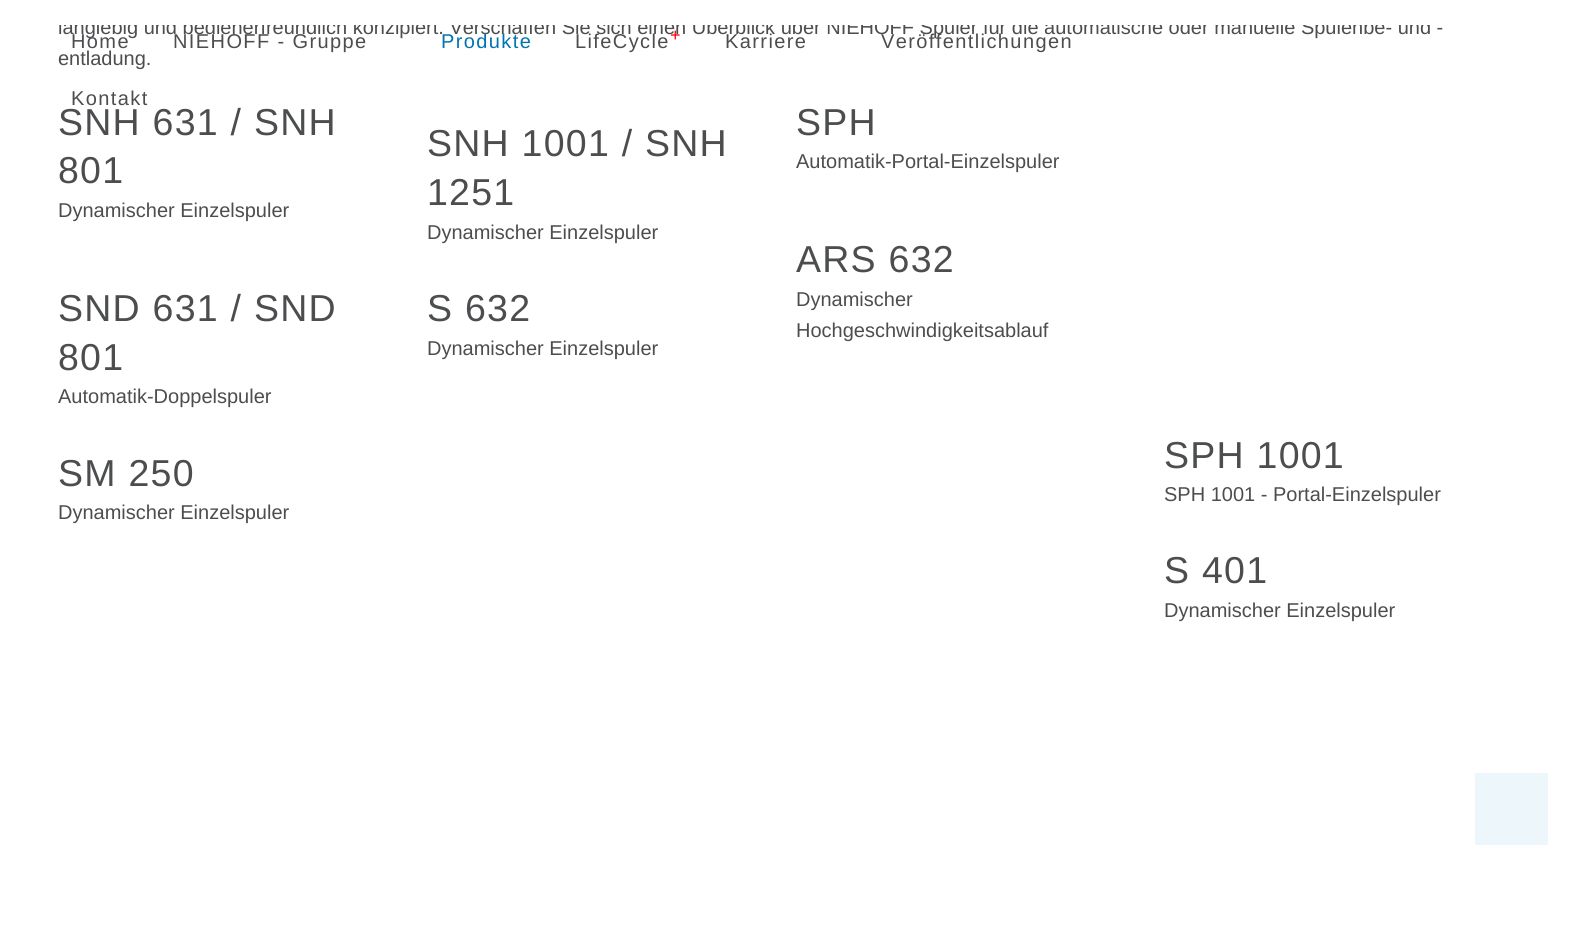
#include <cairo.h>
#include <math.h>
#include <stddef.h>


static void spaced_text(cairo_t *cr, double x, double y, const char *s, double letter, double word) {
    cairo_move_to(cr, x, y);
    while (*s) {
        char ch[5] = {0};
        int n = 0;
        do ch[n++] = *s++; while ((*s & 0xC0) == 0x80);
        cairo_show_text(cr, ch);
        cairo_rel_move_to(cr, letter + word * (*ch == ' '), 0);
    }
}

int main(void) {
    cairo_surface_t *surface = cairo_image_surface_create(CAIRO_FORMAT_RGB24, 1578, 926);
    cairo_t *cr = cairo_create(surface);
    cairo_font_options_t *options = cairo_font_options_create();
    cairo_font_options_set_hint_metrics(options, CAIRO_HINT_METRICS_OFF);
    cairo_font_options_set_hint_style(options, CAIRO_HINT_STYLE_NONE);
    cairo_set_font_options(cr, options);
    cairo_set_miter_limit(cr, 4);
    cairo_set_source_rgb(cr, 1, 1, 1);
    cairo_paint(cr);
    cairo_select_font_face(cr, "Liberation Sans", CAIRO_FONT_SLANT_NORMAL, CAIRO_FONT_WEIGHT_NORMAL);
    cairo_set_font_size(cr, 20);
    cairo_set_source_rgb(cr, 0.298, 0.302, 0.31);
    cairo_move_to(cr, 58, 34);
    cairo_show_text(cr, "langlebig und bedienerfreundlich konzipiert. Verschaffen Sie sich einen Überblick über NIEHOFF Spuler für die automatische oder manuelle Spulenbe- und -");
    cairo_move_to(cr, 58, 65);
    cairo_show_text(cr, "entladung.");
    cairo_set_font_size(cr, 37.5);
    spaced_text(cr, 58, 135, "SNH 631 / SNH", 1.25, 0);
    spaced_text(cr, 58, 183, "801", 1.25, 0);
    cairo_set_font_size(cr, 20);
    cairo_move_to(cr, 58, 217);
    cairo_show_text(cr, "Dynamischer Einzelspuler");
    cairo_set_font_size(cr, 37.5);
    spaced_text(cr, 427, 156, "SNH 1001 / SNH", 1.25, 0);
    spaced_text(cr, 427, 205, "1251", 1.25, 0);
    cairo_set_font_size(cr, 20);
    cairo_move_to(cr, 427, 239);
    cairo_show_text(cr, "Dynamischer Einzelspuler");
    cairo_set_font_size(cr, 37.5);
    spaced_text(cr, 796, 135, "SPH", 1.25, 0);
    cairo_set_font_size(cr, 20);
    cairo_move_to(cr, 796, 168);
    cairo_show_text(cr, "Automatik-Portal-Einzelspuler");
    cairo_set_font_size(cr, 37.5);
    spaced_text(cr, 58, 321, "SND 631 / SND", 1.25, 0);
    spaced_text(cr, 58, 370, "801", 1.25, 0);
    cairo_set_font_size(cr, 20);
    cairo_move_to(cr, 58, 403);
    cairo_show_text(cr, "Automatik-Doppelspuler");
    cairo_set_font_size(cr, 37.5);
    spaced_text(cr, 427, 321, "S 632", 1.25, 0);
    cairo_set_font_size(cr, 20);
    cairo_move_to(cr, 427, 355);
    cairo_show_text(cr, "Dynamischer Einzelspuler");
    cairo_set_font_size(cr, 37.5);
    spaced_text(cr, 796, 272, "ARS 632", 1.25, 0);
    cairo_set_font_size(cr, 20);
    cairo_move_to(cr, 796, 306);
    cairo_show_text(cr, "Dynamischer");
    cairo_move_to(cr, 796, 337);
    cairo_show_text(cr, "Hochgeschwindigkeitsablauf");
    cairo_set_font_size(cr, 37.5);
    spaced_text(cr, 58, 486, "SM 250", 1.25, 0);
    cairo_set_font_size(cr, 20);
    cairo_move_to(cr, 58, 519);
    cairo_show_text(cr, "Dynamischer Einzelspuler");
    cairo_set_font_size(cr, 37.5);
    spaced_text(cr, 1164, 468, "SPH 1001", 1.25, 0);
    cairo_set_font_size(cr, 20);
    cairo_move_to(cr, 1164, 501);
    cairo_show_text(cr, "SPH 1001 - Portal-Einzelspuler");
    cairo_set_font_size(cr, 37.5);
    spaced_text(cr, 1164, 583, "S 401", 1.25, 0);
    cairo_set_font_size(cr, 20);
    cairo_move_to(cr, 1164, 617);
    cairo_show_text(cr, "Dynamischer Einzelspuler");
    cairo_set_source_rgb(cr, 1, 1, 1);
    cairo_rectangle(cr, 59, 17, 1371, 8);
    cairo_fill(cr);
    cairo_set_source_rgb(cr, 0.298, 0.302, 0.31);
    spaced_text(cr, 71, 48, "Home", 1.4, 0);
    spaced_text(cr, 173, 48, "NIEHOFF - Gruppe", 1.4, 0);
    cairo_set_source_rgb(cr, 0, 0.459, 0.698);
    spaced_text(cr, 441, 48, "Produkte", 1.4, 0);
    cairo_set_source_rgb(cr, 0.298, 0.302, 0.31);
    spaced_text(cr, 575, 48, "LifeCycle", 1.4, 0);
    cairo_set_font_size(cr, 18);
    cairo_set_source_rgb(cr, 1, 0, 0);
    spaced_text(cr, 670, 41, "+", 1.4, 0);
    cairo_set_font_size(cr, 20);
    cairo_set_source_rgb(cr, 0.298, 0.302, 0.31);
    spaced_text(cr, 725, 48, "Karriere", 1.4, 0);
    spaced_text(cr, 881, 48, "Veröffentlichungen", 1.4, 0);
    spaced_text(cr, 71, 105, "Kontakt", 1.4, 0);
    cairo_set_source_rgb(cr, 0.929, 0.961, 0.98);
    cairo_rectangle(cr, 1475, 773, 73, 72);
    cairo_fill(cr);
    cairo_surface_write_to_png(surface, "page.png");
    cairo_font_options_destroy(options);
    cairo_destroy(cr);
    cairo_surface_destroy(surface);
    return 0;
}
